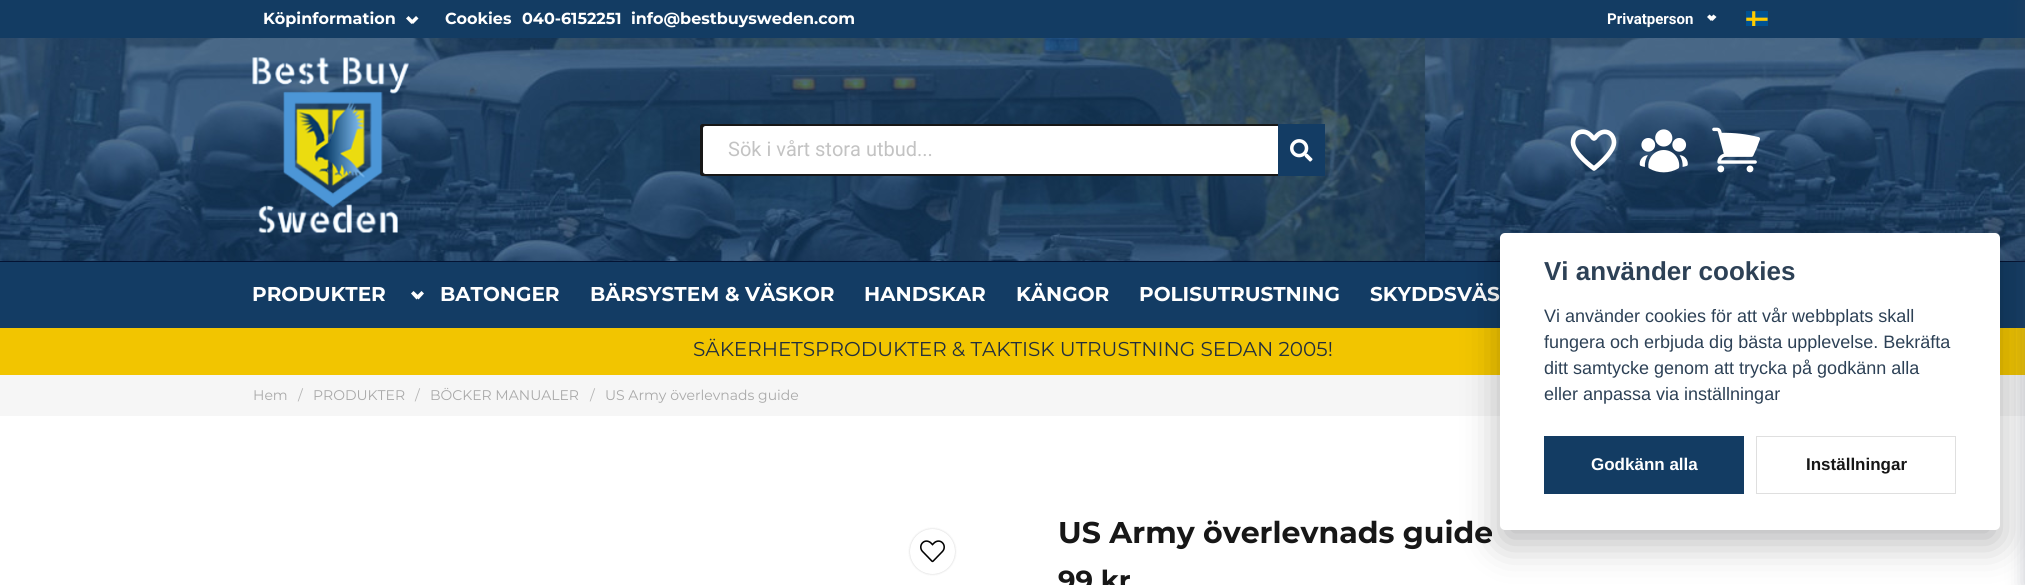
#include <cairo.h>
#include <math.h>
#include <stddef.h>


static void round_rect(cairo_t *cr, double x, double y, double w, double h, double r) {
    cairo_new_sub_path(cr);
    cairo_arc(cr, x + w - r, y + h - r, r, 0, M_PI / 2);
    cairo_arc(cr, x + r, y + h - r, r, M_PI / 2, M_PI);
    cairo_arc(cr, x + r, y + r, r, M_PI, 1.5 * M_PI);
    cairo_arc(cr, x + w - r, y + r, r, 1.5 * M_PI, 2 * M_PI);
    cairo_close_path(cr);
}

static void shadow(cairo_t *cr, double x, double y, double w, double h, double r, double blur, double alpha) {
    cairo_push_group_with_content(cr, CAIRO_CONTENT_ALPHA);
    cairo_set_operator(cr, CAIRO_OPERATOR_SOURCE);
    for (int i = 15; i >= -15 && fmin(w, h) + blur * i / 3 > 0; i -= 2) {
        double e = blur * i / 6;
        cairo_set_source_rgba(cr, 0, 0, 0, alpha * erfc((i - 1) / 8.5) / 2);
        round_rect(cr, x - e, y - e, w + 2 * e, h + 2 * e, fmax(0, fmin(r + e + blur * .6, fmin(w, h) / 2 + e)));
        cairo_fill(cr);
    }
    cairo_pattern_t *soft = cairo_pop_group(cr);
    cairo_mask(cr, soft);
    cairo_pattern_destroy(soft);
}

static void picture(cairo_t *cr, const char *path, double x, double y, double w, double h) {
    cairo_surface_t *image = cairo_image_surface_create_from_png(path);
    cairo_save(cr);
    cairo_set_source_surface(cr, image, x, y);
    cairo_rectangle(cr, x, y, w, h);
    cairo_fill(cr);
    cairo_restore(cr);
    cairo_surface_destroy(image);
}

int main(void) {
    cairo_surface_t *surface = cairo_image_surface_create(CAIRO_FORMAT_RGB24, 2025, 585);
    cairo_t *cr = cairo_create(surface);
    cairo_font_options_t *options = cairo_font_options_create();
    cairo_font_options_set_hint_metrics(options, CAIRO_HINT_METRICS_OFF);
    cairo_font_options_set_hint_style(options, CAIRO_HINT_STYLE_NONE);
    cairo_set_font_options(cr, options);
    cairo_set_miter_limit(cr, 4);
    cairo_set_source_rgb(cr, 1, 1, 1);
    cairo_paint(cr);
    picture(cr, "img1.png", 0, 38, 2025, 223);
    cairo_set_source_rgb(cr, 0.075, 0.235, 0.388);
    cairo_rectangle(cr, 0, 0, 2025, 38);
    cairo_fill(cr);
    cairo_select_font_face(cr, "Montserrat", CAIRO_FONT_SLANT_NORMAL, CAIRO_FONT_WEIGHT_BOLD);
    cairo_set_font_size(cr, 16);
    cairo_set_source_rgb(cr, 1, 1, 1);
    cairo_move_to(cr, 263, 24);
    cairo_show_text(cr, "Köpinformation");
    cairo_new_path(cr);
    cairo_move_to(cr, 410.5, 21.5);
    cairo_line_to(cr, 416, 16);
    cairo_line_to(cr, 418.5, 18.5);
    cairo_line_to(cr, 413, 24);
    cairo_close_path(cr);
    cairo_fill(cr);
    cairo_new_path(cr);
    cairo_move_to(cr, 406, 18.5);
    cairo_line_to(cr, 408.5, 16);
    cairo_line_to(cr, 414, 21.5);
    cairo_line_to(cr, 411.5, 24);
    cairo_close_path(cr);
    cairo_fill(cr);
    cairo_move_to(cr, 445, 24);
    cairo_show_text(cr, "Cookies");
    cairo_move_to(cr, 522, 24);
    cairo_show_text(cr, "040-6152251");
    cairo_move_to(cr, 631, 24);
    cairo_show_text(cr, "info@bestbuysweden.com");
    cairo_select_font_face(cr, "Roboto", CAIRO_FONT_SLANT_NORMAL, CAIRO_FONT_WEIGHT_BOLD);
    cairo_set_font_size(cr, 15);
    cairo_move_to(cr, 1607, 24);
    cairo_show_text(cr, "Privatperson");
    cairo_new_path(cr);
    cairo_move_to(cr, 1710, 18);
    cairo_line_to(cr, 1713.5, 14.5);
    cairo_line_to(cr, 1716.5, 17);
    cairo_line_to(cr, 1712.5, 21);
    cairo_close_path(cr);
    cairo_fill(cr);
    cairo_new_path(cr);
    cairo_move_to(cr, 1707, 17);
    cairo_line_to(cr, 1709.5, 14.5);
    cairo_line_to(cr, 1713.5, 18);
    cairo_line_to(cr, 1711, 21);
    cairo_close_path(cr);
    cairo_fill(cr);
    picture(cr, "img2.png", 1746, 11, 22, 15);
    picture(cr, "img3.png", 252, 57, 157, 176);
    round_rect(cr, 701.5, 125.5, 622, 49, 1);
    cairo_set_source_rgb(cr, 0.09, 0.09, 0.09);
    cairo_set_line_width(cr, 3);
    cairo_stroke(cr);
    cairo_set_source_rgb(cr, 1, 1, 1);
    round_rect(cr, 703, 126, 620, 48, 2.5);
    cairo_fill(cr);
    cairo_select_font_face(cr, "Roboto", CAIRO_FONT_SLANT_NORMAL, CAIRO_FONT_WEIGHT_NORMAL);
    cairo_set_font_size(cr, 20);
    cairo_set_source_rgb(cr, 0.765, 0.765, 0.765);
    cairo_move_to(cr, 728, 156);
    cairo_show_text(cr, "Sök i vårt stora utbud...");
    cairo_set_source_rgb(cr, 0.078, 0.235, 0.392);
    cairo_rectangle(cr, 1278, 124, 47, 52);
    cairo_fill(cr);
    picture(cr, "img4.png", 1290, 139, 23, 23);
    cairo_new_path(cr);
    cairo_move_to(cr, 1593, 138);
    cairo_curve_to(cr, 1585.5, 127, 1573, 131.5, 1573, 142.5);
    cairo_curve_to(cr, 1573, 153.5, 1594, 168.5, 1594, 168.5);
    cairo_curve_to(cr, 1594, 168.5, 1614, 153, 1614, 142.5);
    cairo_curve_to(cr, 1614, 132, 1602.5, 127, 1595, 138);
    cairo_line_to(cr, 1594, 138.5);
    cairo_close_path(cr);
    cairo_set_source_rgb(cr, 1, 1, 1);
    cairo_set_line_width(cr, 4.6);
    cairo_set_line_cap(cr, CAIRO_LINE_CAP_ROUND);
    cairo_set_line_join(cr, CAIRO_LINE_JOIN_ROUND);
    cairo_stroke(cr);
    picture(cr, "img5.png", 1639, 129, 49, 44);
    picture(cr, "img6.png", 1712, 127, 48, 46);
    cairo_set_source_rgb(cr, 0.078, 0.235, 0.392);
    cairo_rectangle(cr, 0, 262, 2025, 66);
    cairo_fill(cr);
    cairo_set_source_rgb(cr, 0.016, 0.078, 0.2);
    cairo_rectangle(cr, 0, 261, 2025, 1);
    cairo_fill(cr);
    cairo_select_font_face(cr, "Montserrat", CAIRO_FONT_SLANT_NORMAL, CAIRO_FONT_WEIGHT_BOLD);
    cairo_set_source_rgb(cr, 1, 1, 1);
    cairo_move_to(cr, 252, 301);
    cairo_show_text(cr, "PRODUKTER");
    cairo_new_path(cr);
    cairo_move_to(cr, 416, 296.5);
    cairo_line_to(cr, 421.5, 291);
    cairo_line_to(cr, 424, 293.5);
    cairo_line_to(cr, 418.5, 299.5);
    cairo_close_path(cr);
    cairo_fill(cr);
    cairo_new_path(cr);
    cairo_move_to(cr, 411, 293.5);
    cairo_line_to(cr, 413.5, 291);
    cairo_line_to(cr, 419.5, 296.5);
    cairo_line_to(cr, 416.5, 299.5);
    cairo_close_path(cr);
    cairo_fill(cr);
    cairo_move_to(cr, 440, 301);
    cairo_show_text(cr, "BATONGER");
    cairo_move_to(cr, 590, 301);
    cairo_show_text(cr, "BÄRSYSTEM & VÄSKOR");
    cairo_move_to(cr, 864, 301);
    cairo_show_text(cr, "HANDSKAR");
    cairo_move_to(cr, 1016, 301);
    cairo_show_text(cr, "KÄNGOR");
    cairo_move_to(cr, 1139, 301);
    cairo_show_text(cr, "POLISUTRUSTNING");
    cairo_move_to(cr, 1370, 301);
    cairo_show_text(cr, "SKYDDSVÄS");
    cairo_set_source_rgb(cr, 0.949, 0.773, 0);
    cairo_rectangle(cr, 0, 328, 2025, 47);
    cairo_fill(cr);
    cairo_set_source_rgb(cr, 0.961, 0.961, 0.961);
    cairo_rectangle(cr, 0, 375, 2025, 41);
    cairo_fill(cr);
    cairo_set_source_rgb(cr, 0.235, 0.259, 0.341);
    shadow(cr, 2025, 1, 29, 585, 0, 9.5, 0.3);
    cairo_select_font_face(cr, "Montserrat", CAIRO_FONT_SLANT_NORMAL, CAIRO_FONT_WEIGHT_NORMAL);
    cairo_set_source_rgb(cr, 0.133, 0.184, 0.239);
    cairo_move_to(cr, 693, 356);
    cairo_show_text(cr, "SÄKERHETSPRODUKTER & TAKTISK UTRUSTNING SEDAN 2005!");
    cairo_set_font_size(cr, 14);
    cairo_set_source_rgb(cr, 0.663, 0.663, 0.663);
    cairo_move_to(cr, 253, 400);
    cairo_show_text(cr, "Hem");
    cairo_set_source_rgb(cr, 0.71, 0.71, 0.71);
    cairo_move_to(cr, 298, 400);
    cairo_show_text(cr, "/");
    cairo_set_source_rgb(cr, 0.663, 0.663, 0.663);
    cairo_move_to(cr, 313, 400);
    cairo_show_text(cr, "PRODUKTER");
    cairo_set_source_rgb(cr, 0.71, 0.71, 0.71);
    cairo_move_to(cr, 415, 400);
    cairo_show_text(cr, "/");
    cairo_set_source_rgb(cr, 0.663, 0.663, 0.663);
    cairo_move_to(cr, 430, 400);
    cairo_show_text(cr, "BÖCKER MANUALER");
    cairo_set_source_rgb(cr, 0.71, 0.71, 0.71);
    cairo_move_to(cr, 590, 400);
    cairo_show_text(cr, "/");
    cairo_set_source_rgb(cr, 0.663, 0.663, 0.663);
    cairo_move_to(cr, 605, 400);
    cairo_show_text(cr, "US Army överlevnads guide");
    cairo_set_source_rgb(cr, 0, 0, 0);
    shadow(cr, 910, 529, 45, 45, 22.5, 1, 0.2);
    cairo_set_source_rgb(cr, 1, 1, 1);
    cairo_arc(cr, 932.5, 551.5, 22.5, 0, 2 * M_PI);
    cairo_fill(cr);
    picture(cr, "img7.png", 920, 540, 25, 23);
    cairo_select_font_face(cr, "Montserrat", CAIRO_FONT_SLANT_NORMAL, CAIRO_FONT_WEIGHT_BOLD);
    cairo_set_font_size(cr, 30);
    cairo_set_source_rgb(cr, 0.09, 0.09, 0.09);
    cairo_move_to(cr, 1058, 543);
    cairo_show_text(cr, "US Army överlevnads guide");
    cairo_set_font_size(cr, 27.5);
    cairo_move_to(cr, 1058, 590);
    cairo_show_text(cr, "99 kr");
    cairo_set_source_rgb(cr, 0.008, 0.008, 0.012);
    shadow(cr, 1500, 245, 500, 298, 5, 19, 0.28);
    cairo_set_source_rgb(cr, 1, 1, 1);
    round_rect(cr, 1500, 233, 500, 297, 5);
    cairo_fill(cr);
    cairo_select_font_face(cr, "Liberation Sans", CAIRO_FONT_SLANT_NORMAL, CAIRO_FONT_WEIGHT_BOLD);
    cairo_set_font_size(cr, 26);
    cairo_set_source_rgb(cr, 0.176, 0.255, 0.337);
    cairo_move_to(cr, 1544, 280);
    cairo_show_text(cr, "Vi använder cookies");
    cairo_select_font_face(cr, "Liberation Sans", CAIRO_FONT_SLANT_NORMAL, CAIRO_FONT_WEIGHT_NORMAL);
    cairo_set_font_size(cr, 18);
    cairo_move_to(cr, 1544, 322);
    cairo_show_text(cr, "Vi använder cookies för att vår webbplats skall");
    cairo_move_to(cr, 1544, 348);
    cairo_show_text(cr, "fungera och erbjuda dig bästa upplevelse. Bekräfta");
    cairo_move_to(cr, 1544, 374);
    cairo_show_text(cr, "ditt samtycke genom att trycka på godkänn alla");
    cairo_move_to(cr, 1544, 400);
    cairo_show_text(cr, "eller anpassa via inställningar");
    cairo_set_source_rgb(cr, 0.075, 0.235, 0.388);
    cairo_rectangle(cr, 1544, 436, 200, 58);
    cairo_fill(cr);
    cairo_select_font_face(cr, "Liberation Sans", CAIRO_FONT_SLANT_NORMAL, CAIRO_FONT_WEIGHT_BOLD);
    cairo_set_font_size(cr, 17);
    cairo_set_source_rgb(cr, 1, 1, 1);
    cairo_move_to(cr, 1591, 470);
    cairo_show_text(cr, "Godkänn alla");
    cairo_rectangle(cr, 1756.5, 436.5, 199, 57);
    cairo_set_source_rgb(cr, 0.875, 0.875, 0.875);
    cairo_set_line_width(cr, 1);
    cairo_set_line_cap(cr, CAIRO_LINE_CAP_BUTT);
    cairo_set_line_join(cr, CAIRO_LINE_JOIN_MITER);
    cairo_stroke(cr);
    cairo_set_source_rgb(cr, 0.09, 0.09, 0.09);
    cairo_move_to(cr, 1806, 470);
    cairo_show_text(cr, "Inställningar");
    cairo_surface_write_to_png(surface, "page.png");
    cairo_font_options_destroy(options);
    cairo_destroy(cr);
    cairo_surface_destroy(surface);
    return 0;
}
